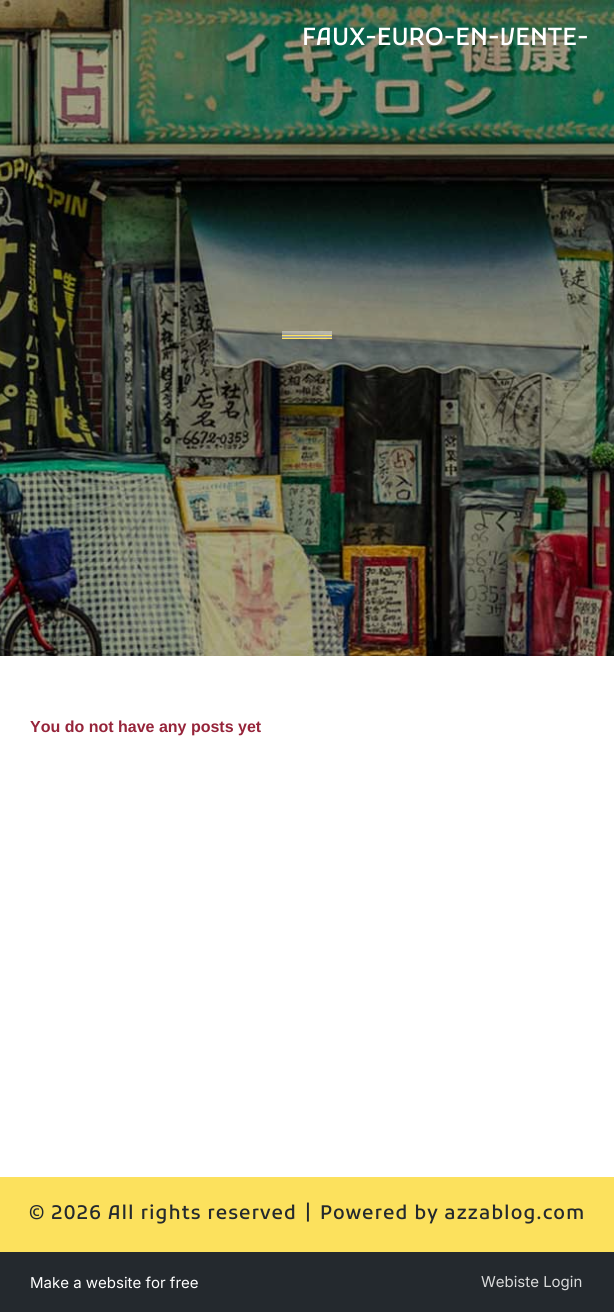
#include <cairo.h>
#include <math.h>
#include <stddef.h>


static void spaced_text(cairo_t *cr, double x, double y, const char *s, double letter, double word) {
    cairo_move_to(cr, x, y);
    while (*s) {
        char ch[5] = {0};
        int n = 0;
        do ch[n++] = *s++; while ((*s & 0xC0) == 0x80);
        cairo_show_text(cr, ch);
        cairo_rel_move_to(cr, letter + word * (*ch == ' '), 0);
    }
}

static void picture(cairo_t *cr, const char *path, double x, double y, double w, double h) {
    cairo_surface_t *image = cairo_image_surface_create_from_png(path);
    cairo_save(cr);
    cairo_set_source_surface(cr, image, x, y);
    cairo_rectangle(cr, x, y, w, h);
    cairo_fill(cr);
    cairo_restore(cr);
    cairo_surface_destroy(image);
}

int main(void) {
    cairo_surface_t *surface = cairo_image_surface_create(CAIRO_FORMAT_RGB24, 614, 1312);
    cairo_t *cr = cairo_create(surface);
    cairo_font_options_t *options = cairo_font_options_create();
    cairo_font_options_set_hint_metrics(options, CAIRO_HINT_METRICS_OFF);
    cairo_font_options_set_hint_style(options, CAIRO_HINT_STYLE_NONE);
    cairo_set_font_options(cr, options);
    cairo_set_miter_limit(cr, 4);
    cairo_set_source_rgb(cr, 1, 1, 1);
    cairo_paint(cr);
    picture(cr, "img1.png", 0, 0, 614, 656);
    cairo_select_font_face(cr, "Kufam Medium", CAIRO_FONT_SLANT_NORMAL, CAIRO_FONT_WEIGHT_NORMAL);
    cairo_set_font_size(cr, 24);
    cairo_set_source_rgb(cr, 1, 1, 1);
    cairo_move_to(cr, 302, 45);
    cairo_show_text(cr, "FAUX-EURO-EN-VENTE-");
    cairo_set_source_rgba(cr, 0.969, 0.969, 0.969, 0.4);
    cairo_rectangle(cr, 282, 331, 50, 7);
    cairo_fill(cr);
    cairo_set_source_rgb(cr, 0.988, 0.882, 0.365);
    cairo_rectangle(cr, 282, 335, 50, 1);
    cairo_fill(cr);
    cairo_rectangle(cr, 282, 338, 50, 1);
    cairo_fill(cr);
    cairo_select_font_face(cr, "Liberation Sans", CAIRO_FONT_SLANT_NORMAL, CAIRO_FONT_WEIGHT_BOLD);
    cairo_set_font_size(cr, 16);
    cairo_set_source_rgb(cr, 0.588, 0.141, 0.227);
    cairo_move_to(cr, 30, 732);
    cairo_show_text(cr, "You do not have any posts yet");
    cairo_set_source_rgb(cr, 0.988, 0.882, 0.365);
    cairo_rectangle(cr, 0, 1177, 614, 75);
    cairo_fill(cr);
    cairo_select_font_face(cr, "Kufam Medium", CAIRO_FONT_SLANT_NORMAL, CAIRO_FONT_WEIGHT_NORMAL);
    cairo_set_font_size(cr, 19);
    cairo_set_source_rgb(cr, 0.141, 0.161, 0.18);
    spaced_text(cr, 29, 1219, "© 2026 All rights reserved", 1, 0);
    spaced_text(cr, 305, 1217, "|", 1, 0);
    spaced_text(cr, 320, 1219, "Powered by azzablog.com", 1, 0);
    cairo_rectangle(cr, 0, 1252, 614, 60);
    cairo_fill(cr);
    cairo_select_font_face(cr, "Inter", CAIRO_FONT_SLANT_NORMAL, CAIRO_FONT_WEIGHT_NORMAL);
    cairo_set_font_size(cr, 15);
    cairo_set_source_rgb(cr, 1, 1, 1);
    cairo_move_to(cr, 30, 1288);
    cairo_show_text(cr, "Make a website for free");
    cairo_set_source_rgb(cr, 0.855, 0.859, 0.859);
    cairo_move_to(cr, 481, 1287);
    cairo_show_text(cr, "Webiste Login");
    cairo_surface_write_to_png(surface, "page.png");
    cairo_font_options_destroy(options);
    cairo_destroy(cr);
    cairo_surface_destroy(surface);
    return 0;
}
